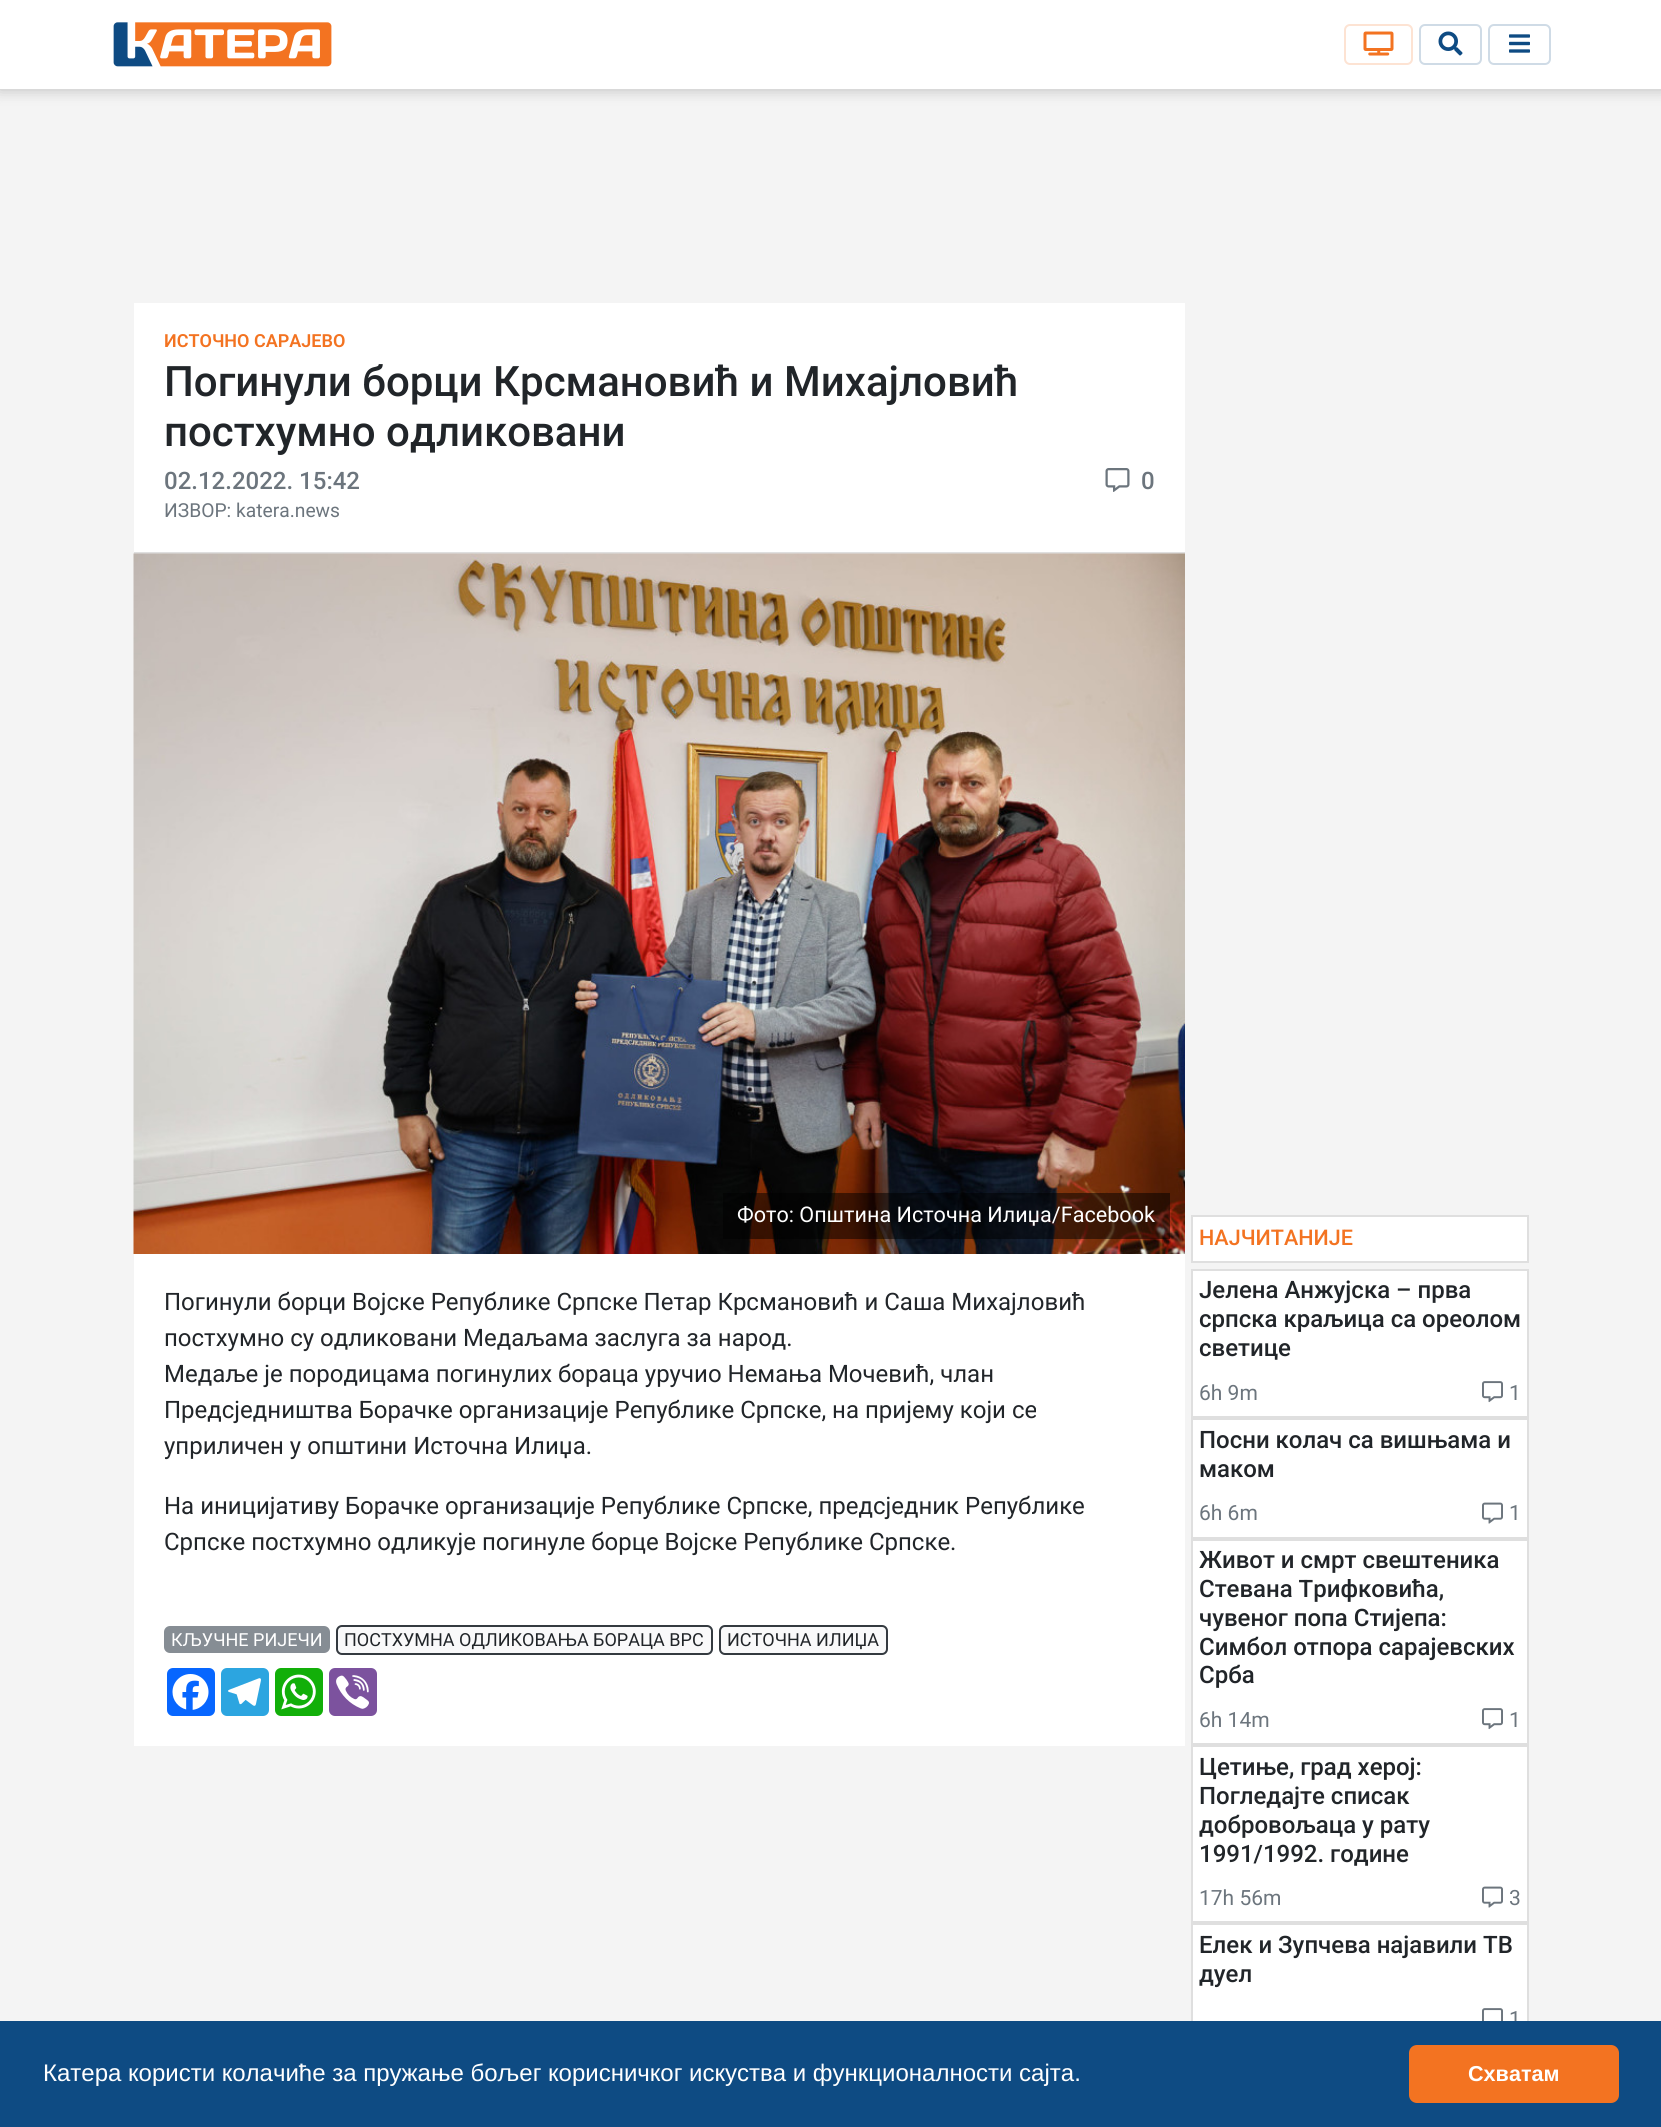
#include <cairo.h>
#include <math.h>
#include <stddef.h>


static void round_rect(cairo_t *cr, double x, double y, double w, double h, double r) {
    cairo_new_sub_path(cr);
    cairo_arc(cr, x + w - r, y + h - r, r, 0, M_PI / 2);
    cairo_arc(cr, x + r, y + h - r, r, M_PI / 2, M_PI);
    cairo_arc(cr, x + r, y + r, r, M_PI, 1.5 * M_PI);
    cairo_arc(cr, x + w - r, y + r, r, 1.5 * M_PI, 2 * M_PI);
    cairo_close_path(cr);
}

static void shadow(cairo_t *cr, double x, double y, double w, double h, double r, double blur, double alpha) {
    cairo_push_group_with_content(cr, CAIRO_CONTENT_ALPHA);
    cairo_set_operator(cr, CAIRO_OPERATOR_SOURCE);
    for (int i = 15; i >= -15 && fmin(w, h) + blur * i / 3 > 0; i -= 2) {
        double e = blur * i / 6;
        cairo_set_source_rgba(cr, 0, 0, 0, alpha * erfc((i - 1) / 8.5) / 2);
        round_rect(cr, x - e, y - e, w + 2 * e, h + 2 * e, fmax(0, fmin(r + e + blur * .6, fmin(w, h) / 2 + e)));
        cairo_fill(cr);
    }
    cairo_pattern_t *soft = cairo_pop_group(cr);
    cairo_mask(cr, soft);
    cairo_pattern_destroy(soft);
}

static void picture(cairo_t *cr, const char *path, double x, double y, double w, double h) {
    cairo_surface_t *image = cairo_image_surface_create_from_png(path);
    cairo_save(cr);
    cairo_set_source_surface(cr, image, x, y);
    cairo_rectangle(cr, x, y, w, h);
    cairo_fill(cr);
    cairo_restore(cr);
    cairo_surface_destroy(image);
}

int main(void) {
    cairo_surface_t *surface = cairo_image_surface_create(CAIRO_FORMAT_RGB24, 1661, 2127);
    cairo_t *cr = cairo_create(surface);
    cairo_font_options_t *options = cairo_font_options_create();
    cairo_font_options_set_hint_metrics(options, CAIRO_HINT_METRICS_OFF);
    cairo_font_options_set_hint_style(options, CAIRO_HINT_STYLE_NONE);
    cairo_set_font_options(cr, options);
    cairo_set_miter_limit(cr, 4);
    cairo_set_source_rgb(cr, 0.957, 0.957, 0.957);
    cairo_paint(cr);
    cairo_set_source_rgb(cr, 0, 0, 0);
    shadow(cr, -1, -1, 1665, 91, 0, 7.5, 0.22);
    cairo_set_source_rgb(cr, 1, 1, 1);
    cairo_rectangle(cr, 0, 0, 1661, 89);
    cairo_fill(cr);
    picture(cr, "img1.png", 113, 22, 219, 45);
    round_rect(cr, 1345, 25, 67, 39, 5);
    cairo_set_source_rgb(cr, 0.992, 0.89, 0.827);
    cairo_stroke(cr);
    picture(cr, "img2.png", 1363, 31, 31, 25);
    round_rect(cr, 1420, 25, 61, 39, 5);
    cairo_set_source_rgb(cr, 0.812, 0.859, 0.902);
    cairo_stroke(cr);
    picture(cr, "img3.png", 1438, 31, 25, 25);
    round_rect(cr, 1489, 25, 61, 39, 5);
    cairo_stroke(cr);
    picture(cr, "img4.png", 1509, 34, 21, 19);
    cairo_set_source_rgb(cr, 1, 1, 1);
    cairo_rectangle(cr, 134, 303, 1051, 1443);
    cairo_fill(cr);
    cairo_set_source_rgb(cr, 0.875, 0.875, 0.875);
    cairo_rectangle(cr, 134, 552, 1051, 2);
    cairo_fill(cr);
    cairo_select_font_face(cr, "Roboto SemiBold", CAIRO_FONT_SLANT_NORMAL, CAIRO_FONT_WEIGHT_NORMAL);
    cairo_set_font_size(cr, 18);
    cairo_set_source_rgb(cr, 0.953, 0.451, 0.129);
    cairo_move_to(cr, 164, 347);
    cairo_show_text(cr, "ИСТОЧНО САРАЈЕВО");
    cairo_select_font_face(cr, "Roboto Medium", CAIRO_FONT_SLANT_NORMAL, CAIRO_FONT_WEIGHT_NORMAL);
    cairo_set_font_size(cr, 42);
    cairo_set_source_rgb(cr, 0.129, 0.145, 0.161);
    cairo_move_to(cr, 164, 396);
    cairo_show_text(cr, "Погинули борци Крсмановић и Михајловић");
    cairo_move_to(cr, 164, 446);
    cairo_show_text(cr, "постхумно одликовани");
    cairo_set_font_size(cr, 24);
    cairo_set_source_rgb(cr, 0.424, 0.459, 0.49);
    cairo_move_to(cr, 164, 489);
    cairo_show_text(cr, "02.12.2022. 15:42");
    picture(cr, "img5.png", 1105, 468, 25, 24);
    cairo_move_to(cr, 1141, 489);
    cairo_show_text(cr, "0");
    cairo_select_font_face(cr, "Roboto", CAIRO_FONT_SLANT_NORMAL, CAIRO_FONT_WEIGHT_NORMAL);
    cairo_set_font_size(cr, 19.25);
    cairo_move_to(cr, 164, 517);
    cairo_show_text(cr, "ИЗВОР: katera.news");
    picture(cr, "img6.png", 133, 553, 1052, 701);
    cairo_set_source_rgba(cr, 0, 0, 0, 0.5);
    cairo_rectangle(cr, 723, 1193, 447, 46);
    cairo_fill(cr);
    cairo_set_font_size(cr, 21.6);
    cairo_set_source_rgb(cr, 1, 1, 1);
    cairo_move_to(cr, 737, 1222);
    cairo_show_text(cr, "Фото: Општина Источна Илиџа/Facebook");
    cairo_set_font_size(cr, 24);
    cairo_set_source_rgb(cr, 0.129, 0.145, 0.161);
    cairo_move_to(cr, 164, 1310);
    cairo_show_text(cr, "Погинули борци Војске Републике Српске Петар Крсмановић и Саша Михајловић");
    cairo_move_to(cr, 164, 1346);
    cairo_show_text(cr, "постхумно су одликовани Медаљама заслуга за народ.");
    cairo_move_to(cr, 164, 1382);
    cairo_show_text(cr, "Медаље је породицама погинулих бораца уручио Немања Мочевић, члан");
    cairo_move_to(cr, 164, 1418);
    cairo_show_text(cr, "Предсједништва Борачке организације Републике Српске, на пријему који се");
    cairo_move_to(cr, 164, 1454);
    cairo_show_text(cr, "уприличен у општини Источна Илиџа.");
    cairo_move_to(cr, 164, 1514);
    cairo_show_text(cr, "На иницијативу Борачке организације Републике Српске, предсједник Републике");
    cairo_move_to(cr, 164, 1550);
    cairo_show_text(cr, "Српске постхумно одликује погинуле борце Војске Републике Српске.");
    cairo_set_source_rgb(cr, 0.525, 0.553, 0.58);
    round_rect(cr, 164, 1626, 166, 27, 6);
    cairo_fill(cr);
    cairo_set_font_size(cr, 18);
    cairo_set_source_rgb(cr, 1, 1, 1);
    cairo_move_to(cr, 171, 1646);
    cairo_show_text(cr, "КЉУЧНЕ РИЈЕЧИ");
    cairo_set_source_rgb(cr, 0.973, 0.976, 0.98);
    round_rect(cr, 337, 1626, 375, 28, 5);
    cairo_fill_preserve(cr);
    cairo_set_source_rgb(cr, 0.204, 0.227, 0.251);
    cairo_stroke(cr);
    cairo_set_source_rgb(cr, 0.129, 0.145, 0.161);
    cairo_move_to(cr, 344, 1646);
    cairo_show_text(cr, "ПОСТХУМНА ОДЛИКОВАЊА БОРАЦА ВРС");
    cairo_set_source_rgb(cr, 0.973, 0.976, 0.98);
    round_rect(cr, 720, 1626, 167, 28, 5);
    cairo_fill_preserve(cr);
    cairo_set_source_rgb(cr, 0.204, 0.227, 0.251);
    cairo_stroke(cr);
    cairo_set_source_rgb(cr, 0.129, 0.145, 0.161);
    cairo_move_to(cr, 727, 1646);
    cairo_show_text(cr, "ИСТОЧНА ИЛИЏА");
    cairo_set_source_rgb(cr, 0.031, 0.4, 1);
    round_rect(cr, 167, 1668, 48, 48, 6);
    cairo_fill(cr);
    picture(cr, "img7.png", 172, 1674, 37, 36);
    cairo_set_source_rgb(cr, 0.173, 0.647, 0.878);
    round_rect(cr, 221, 1668, 48, 48, 6);
    cairo_fill(cr);
    picture(cr, "img8.png", 228, 1678, 33, 28);
    cairo_set_source_rgb(cr, 0.071, 0.686, 0.039);
    round_rect(cr, 275, 1668, 48, 48, 6);
    cairo_fill(cr);
    picture(cr, "img9.png", 281, 1674, 35, 36);
    cairo_set_source_rgb(cr, 0.486, 0.322, 0.62);
    round_rect(cr, 329, 1668, 48, 48, 6);
    cairo_fill(cr);
    picture(cr, "img10.png", 336, 1675, 33, 34);
    cairo_set_source_rgb(cr, 1, 1, 1);
    cairo_rectangle(cr, 1192, 1216, 336, 46);
    cairo_fill_preserve(cr);
    cairo_set_source_rgb(cr, 0.875, 0.875, 0.875);
    cairo_stroke(cr);
    cairo_select_font_face(cr, "Roboto Medium", CAIRO_FONT_SLANT_NORMAL, CAIRO_FONT_WEIGHT_NORMAL);
    cairo_set_font_size(cr, 21.6);
    cairo_set_source_rgb(cr, 0.953, 0.451, 0.129);
    cairo_move_to(cr, 1199, 1245);
    cairo_show_text(cr, "НАЈЧИТАНИЈЕ");
    cairo_set_source_rgb(cr, 1, 1, 1);
    cairo_rectangle(cr, 1192, 1270, 336, 147);
    cairo_fill_preserve(cr);
    cairo_set_source_rgb(cr, 0.875, 0.875, 0.875);
    cairo_stroke(cr);
    cairo_set_font_size(cr, 24);
    cairo_set_source_rgb(cr, 0.129, 0.145, 0.161);
    cairo_move_to(cr, 1199, 1298);
    cairo_show_text(cr, "Јелена Анжујска – прва");
    cairo_move_to(cr, 1199, 1327);
    cairo_show_text(cr, "српска краљица са ореолом");
    cairo_move_to(cr, 1199, 1356);
    cairo_show_text(cr, "светице");
    cairo_select_font_face(cr, "Roboto", CAIRO_FONT_SLANT_NORMAL, CAIRO_FONT_WEIGHT_NORMAL);
    cairo_set_font_size(cr, 21);
    cairo_set_source_rgb(cr, 0.424, 0.459, 0.49);
    cairo_move_to(cr, 1199, 1400);
    cairo_show_text(cr, "6h 9m");
    picture(cr, "img11.png", 1482, 1381, 21, 22);
    cairo_move_to(cr, 1509, 1400);
    cairo_show_text(cr, "1");
    cairo_set_source_rgb(cr, 1, 1, 1);
    cairo_rectangle(cr, 1192, 1419, 336, 119);
    cairo_fill_preserve(cr);
    cairo_set_source_rgb(cr, 0.875, 0.875, 0.875);
    cairo_stroke(cr);
    cairo_select_font_face(cr, "Roboto Medium", CAIRO_FONT_SLANT_NORMAL, CAIRO_FONT_WEIGHT_NORMAL);
    cairo_set_font_size(cr, 24);
    cairo_set_source_rgb(cr, 0.129, 0.145, 0.161);
    cairo_move_to(cr, 1199, 1448);
    cairo_show_text(cr, "Посни колач са вишњама и");
    cairo_move_to(cr, 1199, 1477);
    cairo_show_text(cr, "маком");
    cairo_select_font_face(cr, "Roboto", CAIRO_FONT_SLANT_NORMAL, CAIRO_FONT_WEIGHT_NORMAL);
    cairo_set_font_size(cr, 21);
    cairo_set_source_rgb(cr, 0.424, 0.459, 0.49);
    cairo_move_to(cr, 1199, 1520);
    cairo_show_text(cr, "6h 6m");
    picture(cr, "img12.png", 1482, 1502, 21, 22);
    cairo_move_to(cr, 1509, 1520);
    cairo_show_text(cr, "1");
    cairo_set_source_rgb(cr, 1, 1, 1);
    cairo_rectangle(cr, 1192, 1540, 336, 204);
    cairo_fill_preserve(cr);
    cairo_set_source_rgb(cr, 0.875, 0.875, 0.875);
    cairo_stroke(cr);
    cairo_select_font_face(cr, "Roboto Medium", CAIRO_FONT_SLANT_NORMAL, CAIRO_FONT_WEIGHT_NORMAL);
    cairo_set_font_size(cr, 24);
    cairo_set_source_rgb(cr, 0.129, 0.145, 0.161);
    cairo_move_to(cr, 1199, 1568);
    cairo_show_text(cr, "Живот и смрт свештеника");
    cairo_move_to(cr, 1199, 1597);
    cairo_show_text(cr, "Стевана Трифковића,");
    cairo_move_to(cr, 1199, 1626);
    cairo_show_text(cr, "чувеног попа Стијепа:");
    cairo_move_to(cr, 1199, 1655);
    cairo_show_text(cr, "Симбол отпора сарајевских");
    cairo_move_to(cr, 1199, 1683);
    cairo_show_text(cr, "Срба");
    cairo_select_font_face(cr, "Roboto", CAIRO_FONT_SLANT_NORMAL, CAIRO_FONT_WEIGHT_NORMAL);
    cairo_set_font_size(cr, 21);
    cairo_set_source_rgb(cr, 0.424, 0.459, 0.49);
    cairo_move_to(cr, 1199, 1727);
    cairo_show_text(cr, "6h 14m");
    picture(cr, "img11.png", 1482, 1708, 21, 22);
    cairo_move_to(cr, 1509, 1727);
    cairo_show_text(cr, "1");
    cairo_set_source_rgb(cr, 1, 1, 1);
    cairo_rectangle(cr, 1192, 1746, 336, 176);
    cairo_fill_preserve(cr);
    cairo_set_source_rgb(cr, 0.875, 0.875, 0.875);
    cairo_stroke(cr);
    cairo_select_font_face(cr, "Roboto Medium", CAIRO_FONT_SLANT_NORMAL, CAIRO_FONT_WEIGHT_NORMAL);
    cairo_set_font_size(cr, 24);
    cairo_set_source_rgb(cr, 0.129, 0.145, 0.161);
    cairo_move_to(cr, 1199, 1775);
    cairo_show_text(cr, "Цетиње, град херој:");
    cairo_move_to(cr, 1199, 1804);
    cairo_show_text(cr, "Погледајте списак");
    cairo_move_to(cr, 1199, 1833);
    cairo_show_text(cr, "добровољаца у рату");
    cairo_move_to(cr, 1199, 1862);
    cairo_show_text(cr, "1991/1992. године");
    cairo_select_font_face(cr, "Roboto", CAIRO_FONT_SLANT_NORMAL, CAIRO_FONT_WEIGHT_NORMAL);
    cairo_set_font_size(cr, 21);
    cairo_set_source_rgb(cr, 0.424, 0.459, 0.49);
    cairo_move_to(cr, 1199, 1905);
    cairo_show_text(cr, "17h 56m");
    picture(cr, "img12.png", 1482, 1886, 21, 22);
    cairo_move_to(cr, 1509, 1905);
    cairo_show_text(cr, "3");
    cairo_set_source_rgb(cr, 1, 1, 1);
    cairo_rectangle(cr, 1193, 1925, 334, 96);
    cairo_fill(cr);
    cairo_rectangle(cr, 1192, 1924, 336, 120);
    cairo_set_source_rgb(cr, 0.875, 0.875, 0.875);
    cairo_stroke(cr);
    cairo_select_font_face(cr, "Roboto Medium", CAIRO_FONT_SLANT_NORMAL, CAIRO_FONT_WEIGHT_NORMAL);
    cairo_set_font_size(cr, 24);
    cairo_set_source_rgb(cr, 0.129, 0.145, 0.161);
    cairo_move_to(cr, 1199, 1953);
    cairo_show_text(cr, "Елек и Зупчева најавили ТВ");
    cairo_move_to(cr, 1199, 1982);
    cairo_show_text(cr, "дуел");
    picture(cr, "img13.png", 1482, 2008, 21, 13);
    cairo_select_font_face(cr, "Roboto", CAIRO_FONT_SLANT_NORMAL, CAIRO_FONT_WEIGHT_NORMAL);
    cairo_set_font_size(cr, 21);
    cairo_set_source_rgb(cr, 0.424, 0.459, 0.49);
    cairo_move_to(cr, 1509, 2026);
    cairo_show_text(cr, "1");
    cairo_set_source_rgb(cr, 0.055, 0.294, 0.514);
    cairo_rectangle(cr, 0, 2021, 1661, 106);
    cairo_fill(cr);
    cairo_select_font_face(cr, "Liberation Sans", CAIRO_FONT_SLANT_NORMAL, CAIRO_FONT_WEIGHT_NORMAL);
    cairo_set_font_size(cr, 24);
    cairo_set_source_rgb(cr, 1, 1, 1);
    cairo_move_to(cr, 43, 2081);
    cairo_show_text(cr, "Катера користи колачиће за пружање бољег корисничког искуства и функционалности сајта.");
    cairo_set_source_rgb(cr, 0.953, 0.451, 0.129);
    round_rect(cr, 1409, 2045, 210, 58, 8);
    cairo_fill(cr);
    cairo_select_font_face(cr, "Liberation Sans", CAIRO_FONT_SLANT_NORMAL, CAIRO_FONT_WEIGHT_BOLD);
    cairo_set_font_size(cr, 21.6);
    cairo_set_source_rgb(cr, 1, 1, 1);
    cairo_move_to(cr, 1468, 2081);
    cairo_show_text(cr, "Схватам");
    cairo_surface_write_to_png(surface, "page.png");
    cairo_font_options_destroy(options);
    cairo_destroy(cr);
    cairo_surface_destroy(surface);
    return 0;
}
